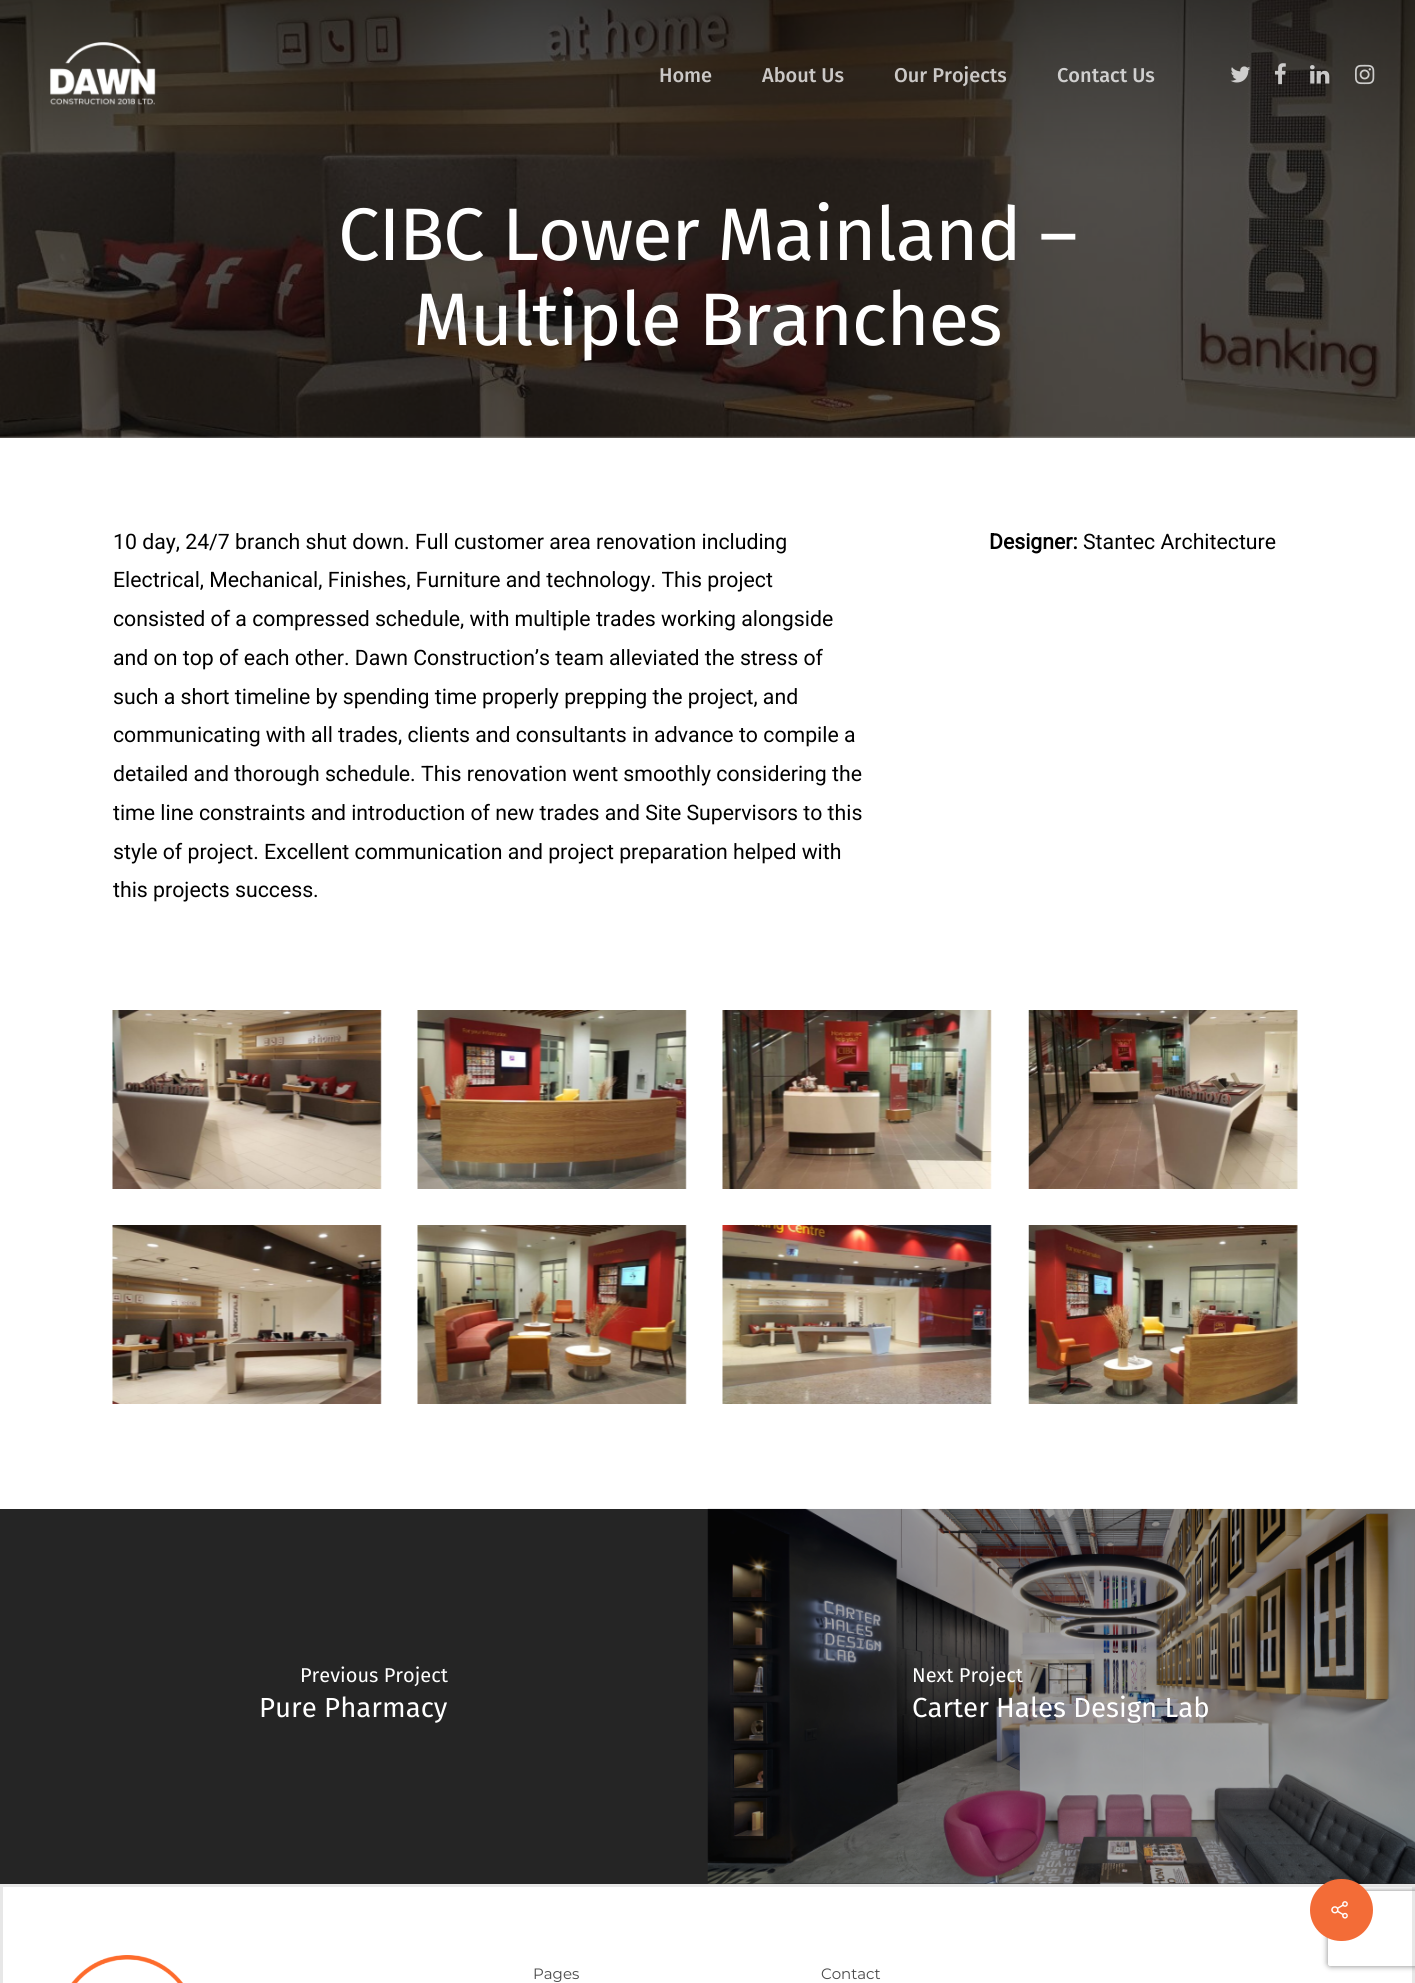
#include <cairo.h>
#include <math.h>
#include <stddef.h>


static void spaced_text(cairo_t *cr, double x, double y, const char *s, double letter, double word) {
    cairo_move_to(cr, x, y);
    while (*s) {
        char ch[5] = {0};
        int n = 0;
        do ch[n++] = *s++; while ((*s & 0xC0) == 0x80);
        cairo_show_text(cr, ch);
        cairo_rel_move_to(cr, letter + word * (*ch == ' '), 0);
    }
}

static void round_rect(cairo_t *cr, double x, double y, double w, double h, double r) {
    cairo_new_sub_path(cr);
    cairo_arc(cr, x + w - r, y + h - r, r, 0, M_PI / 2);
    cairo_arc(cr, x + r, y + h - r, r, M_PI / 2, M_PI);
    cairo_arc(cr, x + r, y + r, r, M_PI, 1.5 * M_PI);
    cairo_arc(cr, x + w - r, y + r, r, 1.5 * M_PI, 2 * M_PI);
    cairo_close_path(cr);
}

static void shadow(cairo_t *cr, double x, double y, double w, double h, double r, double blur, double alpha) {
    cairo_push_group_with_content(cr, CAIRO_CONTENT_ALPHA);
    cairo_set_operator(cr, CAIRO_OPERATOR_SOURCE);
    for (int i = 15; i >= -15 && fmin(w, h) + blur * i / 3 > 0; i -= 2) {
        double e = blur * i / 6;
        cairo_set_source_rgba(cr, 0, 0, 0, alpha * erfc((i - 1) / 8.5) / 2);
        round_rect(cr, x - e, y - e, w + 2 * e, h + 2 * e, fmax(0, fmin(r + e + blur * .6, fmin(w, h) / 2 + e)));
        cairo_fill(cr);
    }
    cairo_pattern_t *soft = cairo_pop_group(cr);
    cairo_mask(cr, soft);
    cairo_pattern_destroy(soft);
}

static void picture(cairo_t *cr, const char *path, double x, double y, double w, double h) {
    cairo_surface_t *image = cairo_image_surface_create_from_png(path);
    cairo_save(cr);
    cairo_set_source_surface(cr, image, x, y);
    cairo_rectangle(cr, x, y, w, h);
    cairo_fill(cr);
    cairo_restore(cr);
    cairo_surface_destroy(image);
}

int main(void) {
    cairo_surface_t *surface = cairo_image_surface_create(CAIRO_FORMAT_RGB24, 1415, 1983);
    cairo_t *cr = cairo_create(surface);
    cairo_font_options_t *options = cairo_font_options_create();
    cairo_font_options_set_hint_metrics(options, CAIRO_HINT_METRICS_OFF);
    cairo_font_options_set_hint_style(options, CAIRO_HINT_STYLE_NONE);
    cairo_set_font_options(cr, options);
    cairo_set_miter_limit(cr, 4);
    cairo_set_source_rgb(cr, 1, 1, 1);
    cairo_paint(cr);
    picture(cr, "img6.png", 0, 0, 1415, 438);
    picture(cr, "img1.png", 50, 42, 106, 63);
    cairo_select_font_face(cr, "Fira Sans Medium", CAIRO_FONT_SLANT_NORMAL, CAIRO_FONT_WEIGHT_NORMAL);
    cairo_set_font_size(cr, 20);
    cairo_set_source_rgb(cr, 0.796, 0.784, 0.776);
    cairo_move_to(cr, 659, 82);
    cairo_show_text(cr, "Home");
    cairo_move_to(cr, 762, 82);
    cairo_show_text(cr, "About Us");
    cairo_move_to(cr, 894, 82);
    cairo_show_text(cr, "Our Projects");
    cairo_set_source_rgb(cr, 0.816, 0.812, 0.812);
    cairo_move_to(cr, 1057, 82);
    cairo_show_text(cr, "Contact Us");
    picture(cr, "img2.png", 1230, 66, 21, 17);
    picture(cr, "img3.png", 1274, 63, 12, 22);
    picture(cr, "img4.png", 1310, 65, 20, 19);
    picture(cr, "img5.png", 1355, 64, 20, 21);
    cairo_select_font_face(cr, "Fira Sans", CAIRO_FONT_SLANT_NORMAL, CAIRO_FONT_WEIGHT_NORMAL);
    cairo_set_font_size(cr, 74.4);
    cairo_set_source_rgb(cr, 1, 1, 1);
    spaced_text(cr, 338, 260, "CIBC Lower Mainland –", -1.25, 0);
    spaced_text(cr, 413, 345, "Multiple Branches", -1.25, 0);
    cairo_select_font_face(cr, "Roboto", CAIRO_FONT_SLANT_NORMAL, CAIRO_FONT_WEIGHT_NORMAL);
    cairo_set_font_size(cr, 21.25);
    cairo_set_source_rgb(cr, 0, 0, 0);
    cairo_move_to(cr, 113, 549);
    cairo_show_text(cr, "10 day, 24/7 branch shut down. Full customer area renovation including");
    cairo_move_to(cr, 113, 587);
    cairo_show_text(cr, "Electrical, Mechanical, Finishes, Furniture and technology. This project");
    cairo_move_to(cr, 113, 626);
    cairo_show_text(cr, "consisted of a compressed schedule, with multiple trades working alongside");
    cairo_move_to(cr, 113, 665);
    cairo_show_text(cr, "and on top of each other. Dawn Construction’s team alleviated the stress of");
    cairo_move_to(cr, 113, 704);
    cairo_show_text(cr, "such a short timeline by spending time properly prepping the project, and");
    cairo_move_to(cr, 113, 742);
    cairo_show_text(cr, "communicating with all trades, clients and consultants in advance to compile a");
    cairo_move_to(cr, 113, 781);
    cairo_show_text(cr, "detailed and thorough schedule. This renovation went smoothly considering the");
    cairo_move_to(cr, 113, 820);
    cairo_show_text(cr, "time line constraints and introduction of new trades and Site Supervisors to this");
    cairo_move_to(cr, 113, 859);
    cairo_show_text(cr, "style of project. Excellent communication and project preparation helped with");
    cairo_move_to(cr, 113, 897);
    cairo_show_text(cr, "this projects success.");
    cairo_select_font_face(cr, "Roboto", CAIRO_FONT_SLANT_NORMAL, CAIRO_FONT_WEIGHT_BOLD);
    cairo_move_to(cr, 989, 549);
    cairo_show_text(cr, "Designer:");
    cairo_select_font_face(cr, "Roboto", CAIRO_FONT_SLANT_NORMAL, CAIRO_FONT_WEIGHT_NORMAL);
    cairo_move_to(cr, 1083, 549);
    cairo_show_text(cr, "Stantec Architecture");
    picture(cr, "img7.png", 112, 1010, 270, 179);
    picture(cr, "img8.png", 417, 1010, 270, 179);
    picture(cr, "img9.png", 722, 1010, 270, 179);
    picture(cr, "img10.png", 1028, 1010, 270, 179);
    picture(cr, "img11.png", 112, 1225, 270, 179);
    picture(cr, "img12.png", 417, 1225, 270, 179);
    picture(cr, "img13.png", 722, 1225, 270, 179);
    picture(cr, "img14.png", 1028, 1225, 270, 179);
    cairo_set_source_rgb(cr, 0.2, 0.2, 0.2);
    cairo_rectangle(cr, 0, 1509, 708, 375);
    cairo_fill(cr);
    cairo_set_source_rgb(cr, 0.149, 0.149, 0.149);
    cairo_rectangle(cr, 708, 1883, 707, 1);
    cairo_fill(cr);
    picture(cr, "img15.png", 707, 1508, 708, 376);
    cairo_set_source_rgba(cr, 0.051, 0.051, 0.051, 0.35);
    cairo_rectangle(cr, 0, 1509, 708, 375);
    cairo_fill(cr);
    cairo_select_font_face(cr, "Fira Sans", CAIRO_FONT_SLANT_NORMAL, CAIRO_FONT_WEIGHT_NORMAL);
    cairo_set_font_size(cr, 20);
    cairo_set_source_rgb(cr, 1, 1, 1);
    cairo_move_to(cr, 300, 1682);
    cairo_show_text(cr, "Previous Project");
    cairo_set_font_size(cr, 27.6);
    cairo_move_to(cr, 259, 1717);
    cairo_show_text(cr, "Pure Pharmacy");
    cairo_set_font_size(cr, 20);
    cairo_move_to(cr, 912, 1682);
    cairo_show_text(cr, "Next Project");
    cairo_set_font_size(cr, 27.6);
    cairo_move_to(cr, 912, 1717);
    cairo_show_text(cr, "Carter Hales Design Lab");
    cairo_rectangle(cr, 1.5, 1885.5, 1412, 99);
    cairo_set_source_rgb(cr, 0.906, 0.906, 0.906);
    cairo_set_line_width(cr, 3);
    cairo_stroke(cr);
    cairo_save(cr);
    cairo_set_fill_rule(cr, CAIRO_FILL_RULE_EVEN_ODD);
    cairo_new_path(cr);
    cairo_move_to(cr, 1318, 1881);
    cairo_line_to(cr, 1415, 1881);
    cairo_line_to(cr, 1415, 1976);
    cairo_line_to(cr, 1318, 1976);
    cairo_close_path(cr);
    cairo_move_to(cr, 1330.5, 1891);
    cairo_line_to(cr, 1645.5, 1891);
    cairo_curve_to(cr, 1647, 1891, 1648, 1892, 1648, 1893.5);
    cairo_line_to(cr, 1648, 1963.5);
    cairo_curve_to(cr, 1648, 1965, 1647, 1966, 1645.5, 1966);
    cairo_line_to(cr, 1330.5, 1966);
    cairo_curve_to(cr, 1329, 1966, 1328, 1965, 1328, 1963.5);
    cairo_line_to(cr, 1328, 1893.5);
    cairo_curve_to(cr, 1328, 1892, 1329, 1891, 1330.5, 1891);
    cairo_close_path(cr);
    cairo_clip(cr);
    cairo_set_source_rgb(cr, 0.502, 0.502, 0.502);
    shadow(cr, 1328, 1891, 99, 75, 2.5, 3, 1);
    cairo_restore(cr);
    cairo_set_source_rgb(cr, 0.953, 0.424, 0.216);
    round_rect(cr, 1310, 1879, 63, 62, 31);
    cairo_fill(cr);
    picture(cr, "img16.png", 1331, 1901, 17, 18);
    picture(cr, "img17.png", 71, 1955, 113, 28);
    cairo_select_font_face(cr, "Montserrat", CAIRO_FONT_SLANT_NORMAL, CAIRO_FONT_WEIGHT_NORMAL);
    cairo_set_font_size(cr, 15);
    cairo_set_source_rgb(cr, 0.286, 0.286, 0.286);
    cairo_move_to(cr, 533, 1979);
    cairo_show_text(cr, "Pages");
    cairo_move_to(cr, 821, 1979);
    cairo_show_text(cr, "Contact");
    cairo_surface_write_to_png(surface, "page.png");
    cairo_font_options_destroy(options);
    cairo_destroy(cr);
    cairo_surface_destroy(surface);
    return 0;
}
